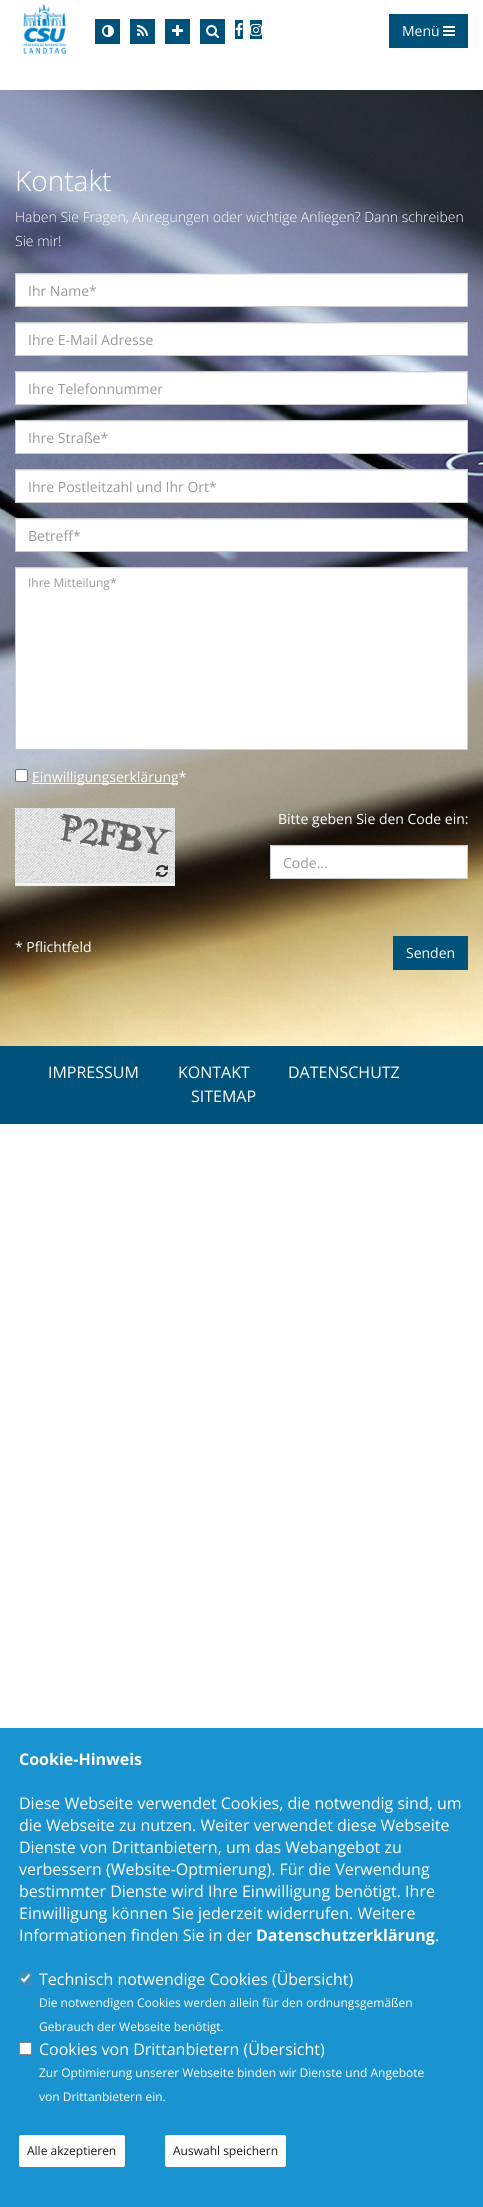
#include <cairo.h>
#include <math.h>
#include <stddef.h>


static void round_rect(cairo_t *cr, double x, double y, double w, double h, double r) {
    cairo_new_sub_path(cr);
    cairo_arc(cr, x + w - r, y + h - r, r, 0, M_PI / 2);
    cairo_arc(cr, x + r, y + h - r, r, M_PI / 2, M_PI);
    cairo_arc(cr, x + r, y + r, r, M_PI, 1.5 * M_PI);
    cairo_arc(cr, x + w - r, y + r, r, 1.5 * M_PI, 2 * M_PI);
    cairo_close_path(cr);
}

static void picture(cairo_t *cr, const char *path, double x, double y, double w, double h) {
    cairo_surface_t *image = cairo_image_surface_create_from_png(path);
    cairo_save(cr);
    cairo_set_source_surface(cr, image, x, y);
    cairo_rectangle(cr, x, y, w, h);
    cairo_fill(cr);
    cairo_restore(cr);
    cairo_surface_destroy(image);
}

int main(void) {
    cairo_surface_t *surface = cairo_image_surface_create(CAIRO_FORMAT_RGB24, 483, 2207);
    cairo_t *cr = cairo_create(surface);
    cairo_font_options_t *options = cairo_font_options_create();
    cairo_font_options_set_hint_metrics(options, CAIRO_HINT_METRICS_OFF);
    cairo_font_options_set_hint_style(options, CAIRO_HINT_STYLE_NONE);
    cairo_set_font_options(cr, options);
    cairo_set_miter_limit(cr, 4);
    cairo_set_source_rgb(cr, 1, 1, 1);
    cairo_paint(cr);
    picture(cr, "img1.png", 23, 4, 43, 50);
    cairo_set_source_rgb(cr, 0, 0.322, 0.478);
    cairo_rectangle(cr, 95, 19, 25, 25);
    cairo_fill(cr);
    picture(cr, "img2.png", 102, 25, 12, 12);
    cairo_rectangle(cr, 130, 19, 25, 25);
    cairo_fill(cr);
    picture(cr, "img3.png", 137, 25, 11, 11);
    cairo_rectangle(cr, 165, 19, 25, 25);
    cairo_fill(cr);
    picture(cr, "img4.png", 172, 25, 11, 11);
    cairo_rectangle(cr, 200, 19, 25, 25);
    cairo_fill(cr);
    picture(cr, "img5.png", 206, 25, 13, 13);
    cairo_rectangle(cr, 235, 20, 8, 19);
    cairo_fill(cr);
    picture(cr, "img6.png", 235, 23, 8, 13);
    cairo_rectangle(cr, 250, 20, 12, 19);
    cairo_fill(cr);
    picture(cr, "img7.png", 250, 24, 12, 12);
    cairo_rectangle(cr, 389, 14, 79, 34);
    cairo_fill(cr);
    cairo_select_font_face(cr, "Open Sans", CAIRO_FONT_SLANT_NORMAL, CAIRO_FONT_WEIGHT_NORMAL);
    cairo_set_font_size(cr, 14);
    cairo_set_source_rgb(cr, 1, 1, 1);
    cairo_move_to(cr, 402, 36);
    cairo_show_text(cr, "Menü");
    picture(cr, "img8.png", 443, 26, 12, 10);
    picture(cr, "img9.png", 0, 90, 483, 956);
    cairo_select_font_face(cr, "Open Sans Light", CAIRO_FONT_SLANT_NORMAL, CAIRO_FONT_WEIGHT_NORMAL);
    cairo_set_font_size(cr, 28);
    cairo_move_to(cr, 15, 191);
    cairo_show_text(cr, "Kontakt");
    cairo_set_font_size(cr, 14);
    cairo_move_to(cr, 15, 222);
    cairo_show_text(cr, "Haben Sie Fragen, Anregungen oder wichtige Anliegen? Dann schreiben");
    cairo_move_to(cr, 15, 246);
    cairo_show_text(cr, "Sie mir!");
    cairo_rectangle(cr, 16, 275, 451, 31);
    cairo_fill(cr);
    cairo_set_source_rgb(cr, 0.925, 0.925, 0.925);
    cairo_rectangle(cr, 16, 274, 451, 1);
    cairo_fill(cr);
    cairo_rectangle(cr, 15.5, 273.5, 452, 33);
    cairo_set_source_rgb(cr, 0.8, 0.8, 0.8);
    cairo_set_line_width(cr, 1);
    cairo_stroke(cr);
    cairo_select_font_face(cr, "Open Sans", CAIRO_FONT_SLANT_NORMAL, CAIRO_FONT_WEIGHT_NORMAL);
    cairo_set_source_rgb(cr, 0.6, 0.6, 0.6);
    cairo_move_to(cr, 28, 296);
    cairo_show_text(cr, "Ihr Name*");
    cairo_set_source_rgb(cr, 1, 1, 1);
    cairo_rectangle(cr, 16, 324, 451, 31);
    cairo_fill(cr);
    cairo_set_source_rgb(cr, 0.925, 0.925, 0.925);
    cairo_rectangle(cr, 16, 323, 451, 1);
    cairo_fill(cr);
    cairo_rectangle(cr, 15.5, 322.5, 452, 33);
    cairo_set_source_rgb(cr, 0.8, 0.8, 0.8);
    cairo_stroke(cr);
    cairo_set_source_rgb(cr, 0.6, 0.6, 0.6);
    cairo_move_to(cr, 28, 345);
    cairo_show_text(cr, "Ihre E-Mail Adresse");
    cairo_set_source_rgb(cr, 1, 1, 1);
    cairo_rectangle(cr, 16, 373, 451, 31);
    cairo_fill(cr);
    cairo_set_source_rgb(cr, 0.925, 0.925, 0.925);
    cairo_rectangle(cr, 16, 372, 451, 1);
    cairo_fill(cr);
    cairo_rectangle(cr, 15.5, 371.5, 452, 33);
    cairo_set_source_rgb(cr, 0.8, 0.8, 0.8);
    cairo_stroke(cr);
    cairo_set_source_rgb(cr, 0.6, 0.6, 0.6);
    cairo_move_to(cr, 28, 394);
    cairo_show_text(cr, "Ihre Telefonnummer");
    cairo_set_source_rgb(cr, 1, 1, 1);
    cairo_rectangle(cr, 16, 422, 451, 31);
    cairo_fill(cr);
    cairo_set_source_rgb(cr, 0.925, 0.925, 0.925);
    cairo_rectangle(cr, 16, 421, 451, 1);
    cairo_fill(cr);
    cairo_rectangle(cr, 15.5, 420.5, 452, 33);
    cairo_set_source_rgb(cr, 0.8, 0.8, 0.8);
    cairo_stroke(cr);
    cairo_set_source_rgb(cr, 0.6, 0.6, 0.6);
    cairo_move_to(cr, 28, 443);
    cairo_show_text(cr, "Ihre Straße*");
    cairo_set_source_rgb(cr, 1, 1, 1);
    cairo_rectangle(cr, 16, 471, 451, 31);
    cairo_fill(cr);
    cairo_set_source_rgb(cr, 0.925, 0.925, 0.925);
    cairo_rectangle(cr, 16, 470, 451, 1);
    cairo_fill(cr);
    cairo_rectangle(cr, 15.5, 469.5, 452, 33);
    cairo_set_source_rgb(cr, 0.8, 0.8, 0.8);
    cairo_stroke(cr);
    cairo_set_source_rgb(cr, 0.6, 0.6, 0.6);
    cairo_move_to(cr, 28, 492);
    cairo_show_text(cr, "Ihre Postleitzahl und Ihr Ort*");
    cairo_set_source_rgb(cr, 1, 1, 1);
    cairo_rectangle(cr, 16, 520, 451, 31);
    cairo_fill(cr);
    cairo_set_source_rgb(cr, 0.925, 0.925, 0.925);
    cairo_rectangle(cr, 16, 519, 451, 1);
    cairo_fill(cr);
    cairo_rectangle(cr, 15.5, 518.5, 452, 33);
    cairo_set_source_rgb(cr, 0.8, 0.8, 0.8);
    cairo_stroke(cr);
    cairo_set_source_rgb(cr, 0.6, 0.6, 0.6);
    cairo_move_to(cr, 28, 541);
    cairo_show_text(cr, "Betreff*");
    cairo_set_source_rgb(cr, 1, 1, 1);
    cairo_rectangle(cr, 16, 569, 451, 180);
    cairo_fill(cr);
    cairo_set_source_rgb(cr, 0.925, 0.925, 0.925);
    cairo_rectangle(cr, 16, 568, 451, 1);
    cairo_fill(cr);
    cairo_rectangle(cr, 15.5, 567.5, 452, 182);
    cairo_set_source_rgb(cr, 0.8, 0.8, 0.8);
    cairo_stroke(cr);
    cairo_set_font_size(cr, 12);
    cairo_set_source_rgb(cr, 0.6, 0.6, 0.6);
    cairo_move_to(cr, 28, 587);
    cairo_show_text(cr, "Ihre Mitteilung*");
    cairo_set_source_rgb(cr, 1, 1, 1);
    round_rect(cr, 15.5, 769.5, 12, 12, 1.5);
    cairo_fill_preserve(cr);
    cairo_set_source_rgb(cr, 0.463, 0.463, 0.463);
    cairo_stroke(cr);
    cairo_set_source_rgb(cr, 1, 1, 1);
    cairo_rectangle(cr, 32, 783, 146, 1);
    cairo_fill(cr);
    cairo_set_font_size(cr, 14);
    cairo_move_to(cr, 32, 782);
    cairo_show_text(cr, "Einwilligungserklärung*");
    cairo_set_source_rgb(cr, 0.949, 0.949, 0.949);
    cairo_rectangle(cr, 15, 883, 160, 3);
    cairo_fill(cr);
    picture(cr, "img10.png", 15, 808, 160, 75);
    picture(cr, "img11.png", 156, 865, 12, 12);
    cairo_set_source_rgb(cr, 1, 1, 1);
    cairo_move_to(cr, 278, 824);
    cairo_show_text(cr, "Bitte geben Sie den Code ein:");
    cairo_rectangle(cr, 271, 847, 196, 31);
    cairo_fill(cr);
    cairo_set_source_rgb(cr, 0.925, 0.925, 0.925);
    cairo_rectangle(cr, 271, 846, 196, 1);
    cairo_fill(cr);
    cairo_rectangle(cr, 270.5, 845.5, 197, 33);
    cairo_set_source_rgb(cr, 0.8, 0.8, 0.8);
    cairo_stroke(cr);
    cairo_set_source_rgb(cr, 0.6, 0.6, 0.6);
    cairo_move_to(cr, 283, 868);
    cairo_show_text(cr, "Code...");
    cairo_set_source_rgb(cr, 1, 1, 1);
    cairo_move_to(cr, 15, 952);
    cairo_show_text(cr, "* Pflichtfeld");
    cairo_set_source_rgb(cr, 0, 0.322, 0.478);
    cairo_rectangle(cr, 393, 936, 75, 34);
    cairo_fill(cr);
    cairo_set_source_rgb(cr, 1, 1, 1);
    cairo_move_to(cr, 406, 958);
    cairo_show_text(cr, "Senden");
    cairo_set_source_rgb(cr, 0, 0.322, 0.478);
    cairo_rectangle(cr, 0, 1046, 483, 78);
    cairo_fill(cr);
    cairo_set_font_size(cr, 16);
    cairo_set_source_rgb(cr, 1, 1, 1);
    cairo_move_to(cr, 48, 1078);
    cairo_show_text(cr, "IMPRESSUM");
    cairo_move_to(cr, 178, 1078);
    cairo_show_text(cr, "KONTAKT");
    cairo_move_to(cr, 288, 1078);
    cairo_show_text(cr, "DATENSCHUTZ");
    cairo_move_to(cr, 191, 1102);
    cairo_show_text(cr, "SITEMAP");
    cairo_set_source_rgb(cr, 0.102, 0.58, 0.82);
    cairo_rectangle(cr, 0, 1728, 483, 479);
    cairo_fill(cr);
    cairo_select_font_face(cr, "Open Sans", CAIRO_FONT_SLANT_NORMAL, CAIRO_FONT_WEIGHT_BOLD);
    cairo_set_source_rgb(cr, 1, 1, 1);
    cairo_move_to(cr, 19, 1765);
    cairo_show_text(cr, "Cookie-Hinweis");
    cairo_select_font_face(cr, "Open Sans", CAIRO_FONT_SLANT_NORMAL, CAIRO_FONT_WEIGHT_NORMAL);
    cairo_move_to(cr, 19, 1809);
    cairo_show_text(cr, "Diese Webseite verwendet Cookies, die notwendig sind, um");
    cairo_move_to(cr, 19, 1831);
    cairo_show_text(cr, "die Webseite zu nutzen. Weiter verwendet diese Webseite");
    cairo_move_to(cr, 19, 1853);
    cairo_show_text(cr, "Dienste von Drittanbietern, um das Webangebot zu");
    cairo_move_to(cr, 19, 1875);
    cairo_show_text(cr, "verbessern (Website-Optmierung). Für die Verwendung");
    cairo_move_to(cr, 19, 1897);
    cairo_show_text(cr, "bestimmter Dienste wird Ihre Einwilligung benötigt. Ihre");
    cairo_move_to(cr, 19, 1919);
    cairo_show_text(cr, "Einwilligung können Sie jederzeit widerrufen. Weitere");
    cairo_move_to(cr, 19, 1941);
    cairo_show_text(cr, "Informationen finden Sie in der");
    cairo_select_font_face(cr, "Open Sans", CAIRO_FONT_SLANT_NORMAL, CAIRO_FONT_WEIGHT_BOLD);
    cairo_move_to(cr, 256, 1941);
    cairo_show_text(cr, "Datenschutzerklärung");
    cairo_select_font_face(cr, "Open Sans", CAIRO_FONT_SLANT_NORMAL, CAIRO_FONT_WEIGHT_NORMAL);
    cairo_move_to(cr, 435, 1941);
    cairo_show_text(cr, ".");
    cairo_set_source_rgb(cr, 0.227, 0.561, 0.729);
    round_rect(cr, 19, 1972, 13, 13, 2);
    cairo_fill(cr);
    cairo_new_path(cr);
    cairo_move_to(cr, 21.5, 1978.5);
    cairo_line_to(cr, 24, 1981);
    cairo_line_to(cr, 29.5, 1974.5);
    cairo_set_source_rgb(cr, 1, 1, 1);
    cairo_set_line_width(cr, 2.1);
    cairo_stroke(cr);
    cairo_move_to(cr, 39, 1985);
    cairo_show_text(cr, "Technisch notwendige Cookies (Übersicht)");
    cairo_set_font_size(cr, 12);
    cairo_move_to(cr, 39, 2007);
    cairo_show_text(cr, "Die notwendigen Cookies werden allein für den ordnungsgemäßen");
    cairo_move_to(cr, 39, 2031);
    cairo_show_text(cr, "Gebrauch der Webseite benötigt.");
    round_rect(cr, 19.5, 2042.5, 12, 12, 1.5);
    cairo_fill_preserve(cr);
    cairo_set_source_rgb(cr, 0.518, 0.518, 0.518);
    cairo_set_line_width(cr, 1);
    cairo_stroke(cr);
    cairo_set_font_size(cr, 16);
    cairo_set_source_rgb(cr, 1, 1, 1);
    cairo_move_to(cr, 39, 2055);
    cairo_show_text(cr, "Cookies von Drittanbietern (Übersicht)");
    cairo_set_font_size(cr, 12);
    cairo_move_to(cr, 39, 2077);
    cairo_show_text(cr, "Zur Optimierung unserer Webseite binden wir Dienste und Angebote");
    cairo_move_to(cr, 39, 2101);
    cairo_show_text(cr, "von Drittanbietern ein.");
    round_rect(cr, 19, 2135, 106, 32, 2);
    cairo_fill(cr);
    cairo_set_source_rgb(cr, 0.102, 0.102, 0.102);
    cairo_move_to(cr, 27, 2155);
    cairo_show_text(cr, "Alle akzeptieren");
    cairo_set_source_rgb(cr, 1, 1, 1);
    round_rect(cr, 165, 2135, 121, 32, 2);
    cairo_fill(cr);
    cairo_set_source_rgb(cr, 0.102, 0.102, 0.102);
    cairo_move_to(cr, 173, 2155);
    cairo_show_text(cr, "Auswahl speichern");
    cairo_surface_write_to_png(surface, "page.png");
    cairo_font_options_destroy(options);
    cairo_destroy(cr);
    cairo_surface_destroy(surface);
    return 0;
}
